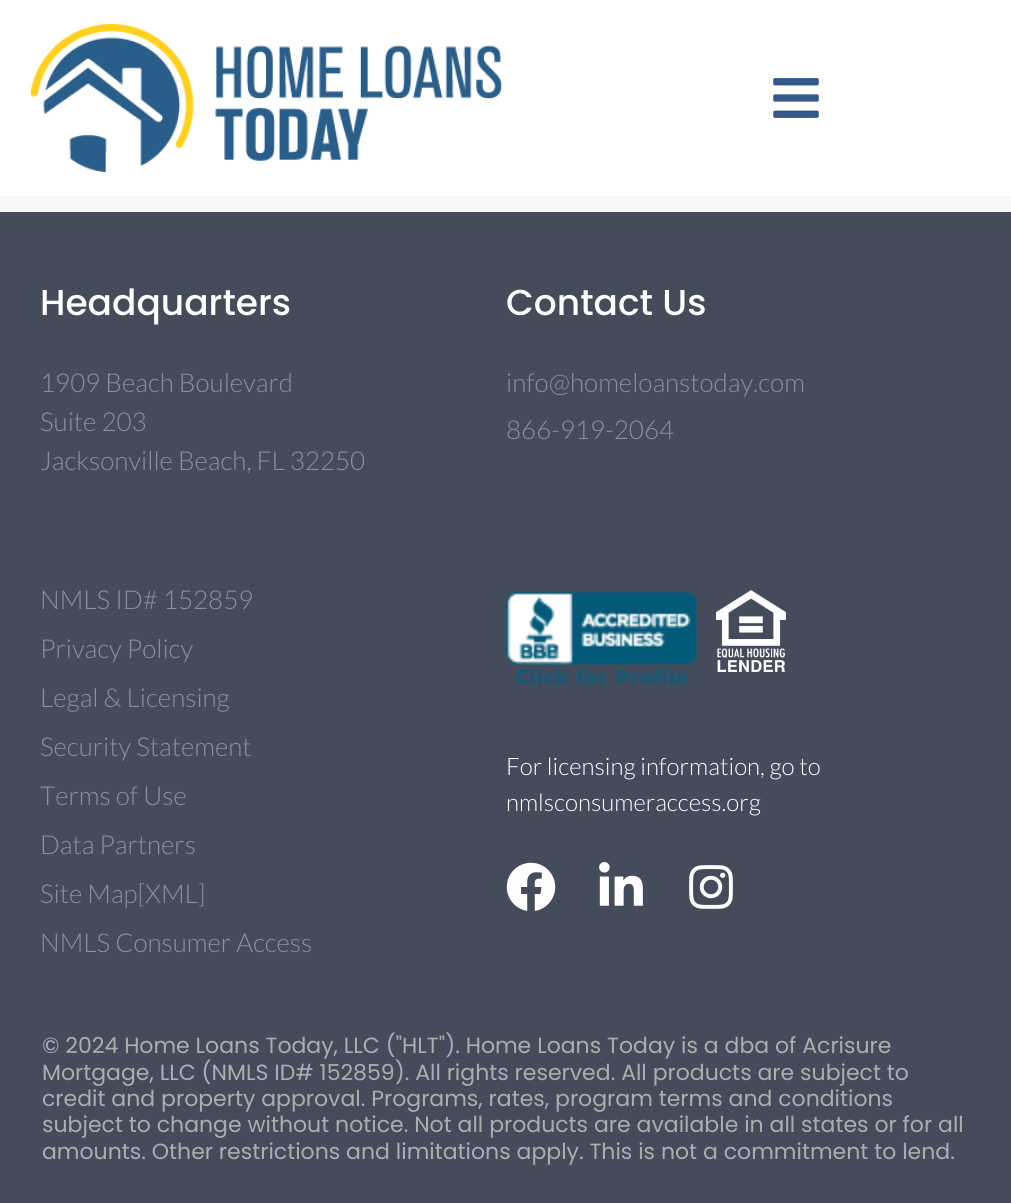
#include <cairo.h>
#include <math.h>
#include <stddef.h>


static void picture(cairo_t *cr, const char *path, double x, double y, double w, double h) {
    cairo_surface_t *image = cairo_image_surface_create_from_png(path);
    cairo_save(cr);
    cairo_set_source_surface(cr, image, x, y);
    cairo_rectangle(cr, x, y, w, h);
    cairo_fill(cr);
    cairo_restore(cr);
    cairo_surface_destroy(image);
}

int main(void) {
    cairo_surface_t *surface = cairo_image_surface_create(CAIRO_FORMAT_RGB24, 1011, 1203);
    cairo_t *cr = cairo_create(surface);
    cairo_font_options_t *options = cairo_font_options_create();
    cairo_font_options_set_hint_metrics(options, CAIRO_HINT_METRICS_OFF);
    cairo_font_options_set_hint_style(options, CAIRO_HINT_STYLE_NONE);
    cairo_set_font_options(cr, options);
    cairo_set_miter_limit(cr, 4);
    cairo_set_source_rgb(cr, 0.969, 0.969, 0.969);
    cairo_paint(cr);
    cairo_set_source_rgb(cr, 1, 1, 1);
    cairo_rectangle(cr, 0, 0, 1011, 196);
    cairo_fill(cr);
    picture(cr, "img1.png", 30, 24, 472, 148);
    picture(cr, "img2.png", 773, 78, 46, 40);
    cairo_set_source_rgb(cr, 0.267, 0.298, 0.361);
    cairo_rectangle(cr, 0, 212, 1011, 991);
    cairo_fill(cr);
    cairo_select_font_face(cr, "Poppins Medium", CAIRO_FONT_SLANT_NORMAL, CAIRO_FONT_WEIGHT_NORMAL);
    cairo_set_font_size(cr, 36);
    cairo_set_source_rgb(cr, 1, 1, 1);
    cairo_move_to(cr, 40, 315);
    cairo_show_text(cr, "Headquarters");
    cairo_select_font_face(cr, "Lato Light", CAIRO_FONT_SLANT_NORMAL, CAIRO_FONT_WEIGHT_NORMAL);
    cairo_set_font_size(cr, 26);
    cairo_set_source_rgb(cr, 0.545, 0.565, 0.604);
    cairo_move_to(cr, 40, 392);
    cairo_show_text(cr, "1909 Beach Boulevard");
    cairo_move_to(cr, 40, 431);
    cairo_show_text(cr, "Suite 203");
    cairo_move_to(cr, 40, 470);
    cairo_show_text(cr, "Jacksonville Beach, FL 32250");
    cairo_select_font_face(cr, "Poppins Medium", CAIRO_FONT_SLANT_NORMAL, CAIRO_FONT_WEIGHT_NORMAL);
    cairo_set_font_size(cr, 36);
    cairo_set_source_rgb(cr, 1, 1, 1);
    cairo_move_to(cr, 506, 315);
    cairo_show_text(cr, "Contact Us");
    cairo_select_font_face(cr, "Lato Light", CAIRO_FONT_SLANT_NORMAL, CAIRO_FONT_WEIGHT_NORMAL);
    cairo_set_font_size(cr, 26);
    cairo_set_source_rgb(cr, 0.545, 0.565, 0.604);
    cairo_move_to(cr, 506, 392);
    cairo_show_text(cr, "info@homeloanstoday.com");
    cairo_move_to(cr, 506, 439);
    cairo_show_text(cr, "866-919-2064");
    cairo_move_to(cr, 40, 609);
    cairo_show_text(cr, "NMLS ID# 152859");
    cairo_move_to(cr, 40, 658);
    cairo_show_text(cr, "Privacy Policy");
    cairo_move_to(cr, 40, 707);
    cairo_show_text(cr, "Legal & Licensing");
    cairo_move_to(cr, 40, 756);
    cairo_show_text(cr, "Security Statement");
    cairo_move_to(cr, 40, 805);
    cairo_show_text(cr, "Terms of Use");
    cairo_move_to(cr, 40, 854);
    cairo_show_text(cr, "Data Partners");
    cairo_move_to(cr, 40, 903);
    cairo_show_text(cr, "Site Map[XML]");
    cairo_move_to(cr, 40, 952);
    cairo_show_text(cr, "NMLS Consumer Access");
    picture(cr, "img3.png", 506, 591, 192, 95);
    picture(cr, "img4.png", 716, 590, 70, 82);
    cairo_set_font_size(cr, 24);
    cairo_set_source_rgb(cr, 1, 1, 1);
    cairo_move_to(cr, 506, 775);
    cairo_show_text(cr, "For licensing information, go to");
    cairo_move_to(cr, 506, 811);
    cairo_show_text(cr, "nmlsconsumeraccess.org");
    picture(cr, "img5.png", 506, 862, 50, 49);
    picture(cr, "img6.png", 599, 862, 44, 44);
    picture(cr, "img7.png", 689, 865, 44, 44);
    cairo_select_font_face(cr, "Poppins", CAIRO_FONT_SLANT_NORMAL, CAIRO_FONT_WEIGHT_NORMAL);
    cairo_set_font_size(cr, 22);
    cairo_set_source_rgb(cr, 0.678, 0.678, 0.678);
    cairo_move_to(cr, 42, 1053);
    cairo_show_text(cr, "© 2024 Home Loans Today, LLC (\"HLT\"). Home Loans Today is a dba of Acrisure");
    cairo_move_to(cr, 42, 1080);
    cairo_show_text(cr, "Mortgage, LLC (NMLS ID# 152859). All rights reserved. All products are subject to");
    cairo_move_to(cr, 42, 1106);
    cairo_show_text(cr, "credit and property approval. Programs, rates, program terms and conditions");
    cairo_move_to(cr, 42, 1132);
    cairo_show_text(cr, "subject to change without notice. Not all products are available in all states or for all");
    cairo_move_to(cr, 42, 1159);
    cairo_show_text(cr, "amounts. Other restrictions and limitations apply. This is not a commitment to lend.");
    cairo_surface_write_to_png(surface, "page.png");
    cairo_font_options_destroy(options);
    cairo_destroy(cr);
    cairo_surface_destroy(surface);
    return 0;
}
